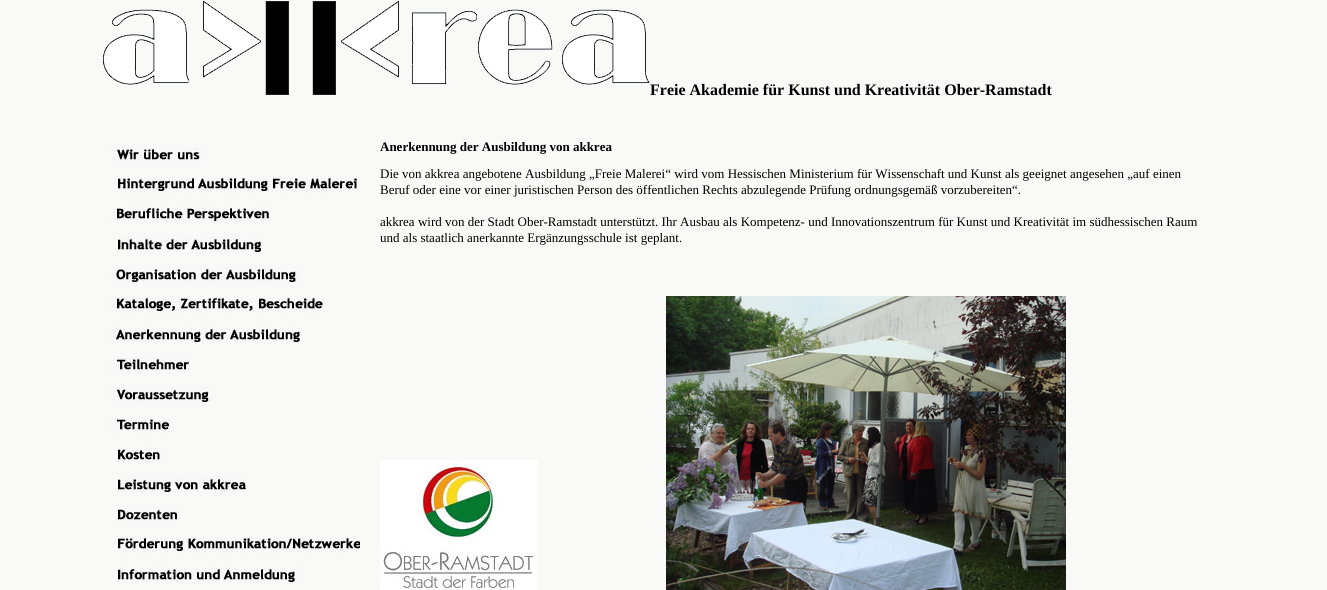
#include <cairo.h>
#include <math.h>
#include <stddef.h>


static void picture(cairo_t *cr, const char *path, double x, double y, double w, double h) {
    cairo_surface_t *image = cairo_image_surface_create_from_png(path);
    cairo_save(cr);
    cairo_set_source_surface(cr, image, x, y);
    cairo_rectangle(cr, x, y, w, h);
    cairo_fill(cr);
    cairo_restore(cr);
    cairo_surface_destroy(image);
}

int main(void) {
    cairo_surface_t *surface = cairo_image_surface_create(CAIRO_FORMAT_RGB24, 1327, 590);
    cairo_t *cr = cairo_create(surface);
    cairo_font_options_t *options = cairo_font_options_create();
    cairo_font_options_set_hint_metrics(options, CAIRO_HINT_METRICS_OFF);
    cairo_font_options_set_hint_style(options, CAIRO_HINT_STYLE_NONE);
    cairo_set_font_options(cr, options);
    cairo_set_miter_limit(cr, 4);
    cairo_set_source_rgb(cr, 0.976, 0.973, 0.969);
    cairo_paint(cr);
    picture(cr, "img1.png", 102, 0, 548, 95);
    cairo_select_font_face(cr, "Liberation Serif", CAIRO_FONT_SLANT_NORMAL, CAIRO_FONT_WEIGHT_BOLD);
    cairo_set_font_size(cr, 16);
    cairo_set_source_rgb(cr, 0, 0, 0);
    cairo_move_to(cr, 650, 95);
    cairo_show_text(cr, "Freie Akademie für Kunst und Kreativität Ober-Ramstadt");
    picture(cr, "img2.png", 110, 147, 95, 16);
    picture(cr, "img3.png", 118, 177, 240, 16);
    picture(cr, "img4.png", 110, 207, 160, 16);
    picture(cr, "img5.png", 118, 237, 144, 16);
    picture(cr, "img6.png", 110, 267, 192, 16);
    picture(cr, "img7.png", 110, 297, 216, 16);
    picture(cr, "img8.png", 110, 327, 192, 16);
    picture(cr, "img9.png", 110, 357, 80, 16);
    picture(cr, "img10.png", 110, 387, 104, 16);
    picture(cr, "img11.png", 110, 417, 64, 16);
    picture(cr, "img12.png", 118, 447, 48, 16);
    picture(cr, "img13.png", 118, 477, 128, 16);
    picture(cr, "img14.png", 118, 507, 64, 16);
    picture(cr, "img15.png", 118, 537, 242, 16);
    picture(cr, "img16.png", 118, 567, 184, 16);
    cairo_set_font_size(cr, 13);
    cairo_move_to(cr, 380, 151);
    cairo_show_text(cr, "Anerkennung der Ausbildung von akkrea");
    cairo_select_font_face(cr, "Liberation Serif", CAIRO_FONT_SLANT_NORMAL, CAIRO_FONT_WEIGHT_NORMAL);
    cairo_move_to(cr, 380, 178);
    cairo_show_text(cr, "Die von akkrea angebotene Ausbildung „Freie Malerei“ wird vom Hessischen Ministerium für Wissenschaft und Kunst als geeignet angesehen „auf einen");
    cairo_move_to(cr, 380, 194);
    cairo_show_text(cr, "Beruf oder eine vor einer juristischen Person des öffentlichen Rechts abzulegende Prüfung ordnungsgemäß vorzubereiten“.");
    cairo_move_to(cr, 380, 226);
    cairo_show_text(cr, "akkrea wird von der Stadt Ober-Ramstadt unterstützt. Ihr Ausbau als Kompetenz- und Innovationszentrum für Kunst und Kreativität im südhessischen Raum");
    cairo_move_to(cr, 380, 242);
    cairo_show_text(cr, "und als staatlich anerkannte Ergänzungsschule ist geplant.");
    picture(cr, "img17.png", 380, 460, 158, 130);
    picture(cr, "img18.png", 666, 296, 400, 294);
    cairo_surface_write_to_png(surface, "page.png");
    cairo_font_options_destroy(options);
    cairo_destroy(cr);
    cairo_surface_destroy(surface);
    return 0;
}
